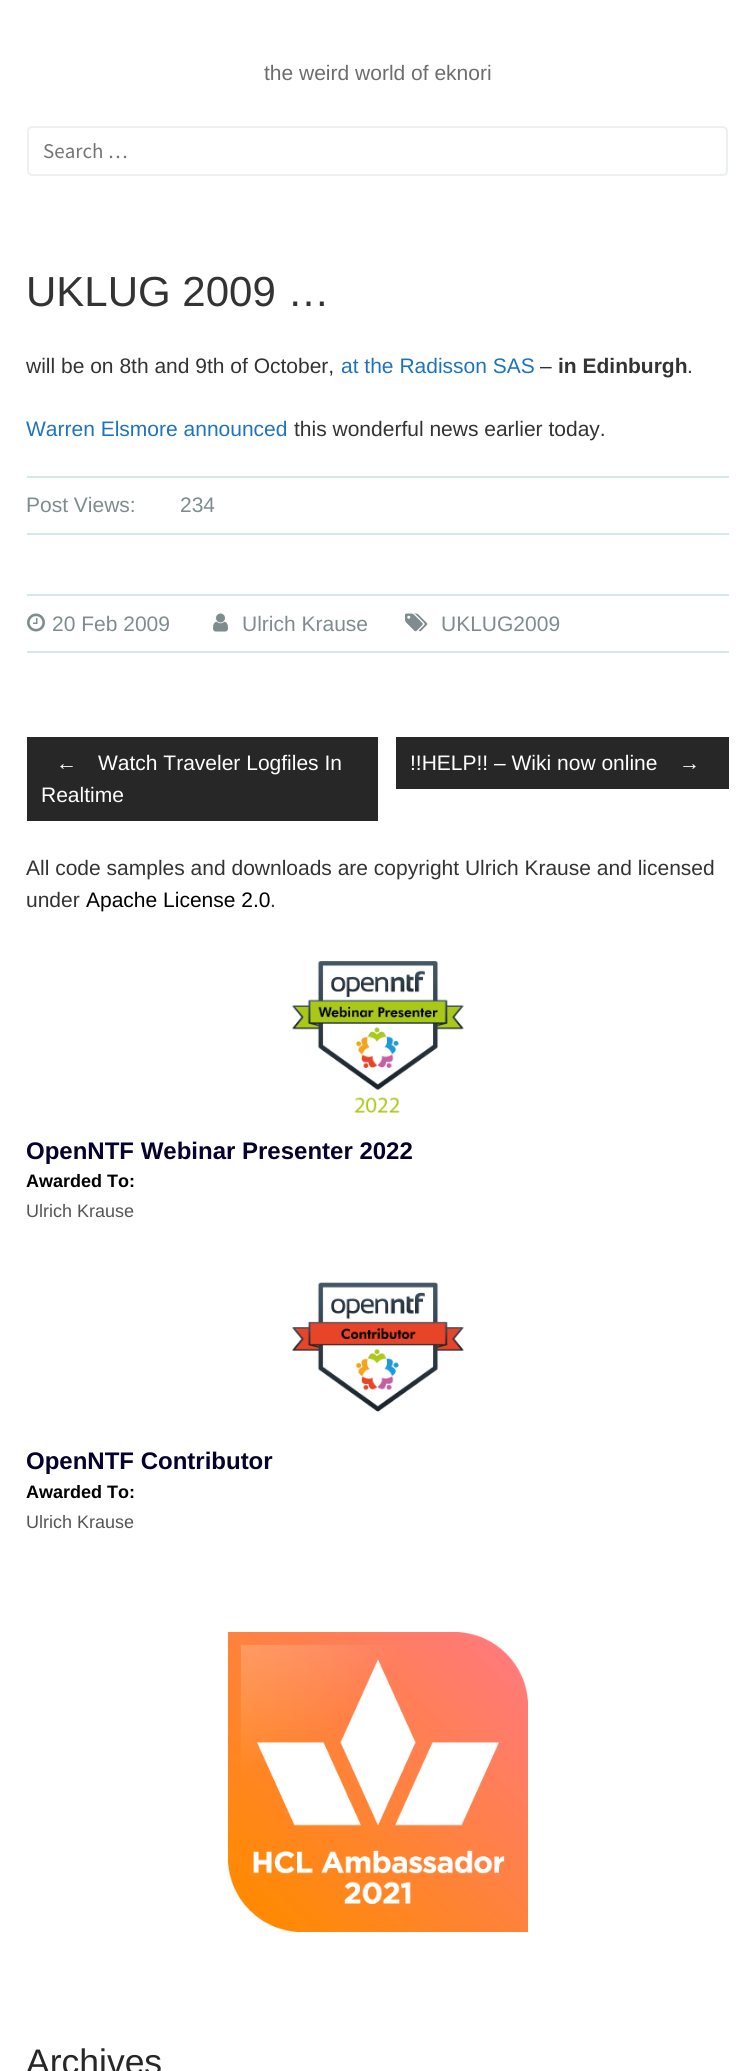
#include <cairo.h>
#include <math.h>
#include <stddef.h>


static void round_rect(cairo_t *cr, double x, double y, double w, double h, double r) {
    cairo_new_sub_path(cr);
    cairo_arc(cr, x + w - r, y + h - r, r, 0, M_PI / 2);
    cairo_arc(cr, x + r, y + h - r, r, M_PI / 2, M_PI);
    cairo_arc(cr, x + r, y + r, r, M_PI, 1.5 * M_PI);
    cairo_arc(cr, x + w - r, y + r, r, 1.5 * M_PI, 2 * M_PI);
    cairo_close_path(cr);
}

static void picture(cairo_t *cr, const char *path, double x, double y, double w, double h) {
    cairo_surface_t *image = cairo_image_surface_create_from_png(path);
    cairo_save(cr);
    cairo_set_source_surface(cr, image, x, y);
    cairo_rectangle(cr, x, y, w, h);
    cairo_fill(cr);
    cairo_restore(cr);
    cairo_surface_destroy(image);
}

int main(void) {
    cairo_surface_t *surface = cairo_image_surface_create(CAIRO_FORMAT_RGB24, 755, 2071);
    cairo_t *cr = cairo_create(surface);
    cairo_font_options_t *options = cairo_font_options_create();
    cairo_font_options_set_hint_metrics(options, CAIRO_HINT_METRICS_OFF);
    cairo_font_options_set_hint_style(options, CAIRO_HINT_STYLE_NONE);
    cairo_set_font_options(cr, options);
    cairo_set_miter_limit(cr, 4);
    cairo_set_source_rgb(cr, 1, 1, 1);
    cairo_paint(cr);
    cairo_select_font_face(cr, "Liberation Sans", CAIRO_FONT_SLANT_NORMAL, CAIRO_FONT_WEIGHT_NORMAL);
    cairo_set_font_size(cr, 21);
    cairo_set_source_rgb(cr, 0.427, 0.427, 0.427);
    cairo_move_to(cr, 264, 80);
    cairo_show_text(cr, "the weird world of eknori");
    round_rect(cr, 28, 127, 699, 48, 4);
    cairo_set_source_rgb(cr, 0.925, 0.941, 0.945);
    cairo_stroke(cr);
    cairo_select_font_face(cr, "Source Sans Pro", CAIRO_FONT_SLANT_NORMAL, CAIRO_FONT_WEIGHT_NORMAL);
    cairo_set_source_rgb(cr, 0.459, 0.459, 0.459);
    cairo_move_to(cr, 43, 158);
    cairo_show_text(cr, "Search …");
    cairo_select_font_face(cr, "Liberation Sans", CAIRO_FONT_SLANT_NORMAL, CAIRO_FONT_WEIGHT_NORMAL);
    cairo_set_font_size(cr, 42);
    cairo_set_source_rgb(cr, 0.2, 0.2, 0.2);
    cairo_move_to(cr, 26, 306);
    cairo_show_text(cr, "UKLUG 2009 …");
    cairo_set_font_size(cr, 21);
    cairo_move_to(cr, 26, 373);
    cairo_show_text(cr, "will be on 8th and 9th of October,");
    cairo_set_source_rgb(cr, 0.118, 0.451, 0.745);
    cairo_move_to(cr, 341, 373);
    cairo_show_text(cr, "at the Radisson SAS");
    cairo_set_source_rgb(cr, 0.2, 0.2, 0.2);
    cairo_move_to(cr, 540, 373);
    cairo_show_text(cr, "–");
    cairo_select_font_face(cr, "Liberation Sans", CAIRO_FONT_SLANT_NORMAL, CAIRO_FONT_WEIGHT_BOLD);
    cairo_move_to(cr, 558, 373);
    cairo_show_text(cr, "in Edinburgh");
    cairo_select_font_face(cr, "Liberation Sans", CAIRO_FONT_SLANT_NORMAL, CAIRO_FONT_WEIGHT_NORMAL);
    cairo_move_to(cr, 687, 373);
    cairo_show_text(cr, ".");
    cairo_set_source_rgb(cr, 0.118, 0.451, 0.745);
    cairo_move_to(cr, 26, 436);
    cairo_show_text(cr, "Warren Elsmore announced");
    cairo_set_source_rgb(cr, 0.2, 0.2, 0.2);
    cairo_move_to(cr, 294, 436);
    cairo_show_text(cr, "this wonderful news earlier today.");
    cairo_set_source_rgb(cr, 0.839, 0.902, 0.918);
    cairo_rectangle(cr, 27, 476, 702, 2);
    cairo_fill(cr);
    cairo_rectangle(cr, 27, 533, 702, 2);
    cairo_fill(cr);
    cairo_set_source_rgb(cr, 0.498, 0.549, 0.553);
    cairo_move_to(cr, 26, 512);
    cairo_show_text(cr, "Post Views:");
    cairo_move_to(cr, 180, 512);
    cairo_show_text(cr, "234");
    cairo_set_source_rgb(cr, 0.839, 0.902, 0.918);
    cairo_rectangle(cr, 27, 594, 702, 2);
    cairo_fill(cr);
    cairo_rectangle(cr, 27, 651, 702, 2);
    cairo_fill(cr);
    picture(cr, "img1.png", 27, 613, 18, 19);
    cairo_set_source_rgb(cr, 0.498, 0.549, 0.553);
    cairo_move_to(cr, 52, 631);
    cairo_show_text(cr, "20 Feb 2009");
    picture(cr, "img2.png", 213, 613, 15, 19);
    cairo_move_to(cr, 242, 631);
    cairo_show_text(cr, "Ulrich Krause");
    picture(cr, "img3.png", 405, 613, 23, 19);
    cairo_move_to(cr, 441, 631);
    cairo_show_text(cr, "UKLUG2009");
    cairo_set_source_rgb(cr, 0.153, 0.153, 0.153);
    cairo_rectangle(cr, 27, 737, 351, 84);
    cairo_fill(cr);
    cairo_set_source_rgb(cr, 1, 1, 1);
    cairo_move_to(cr, 56, 770);
    cairo_show_text(cr, "←");
    cairo_move_to(cr, 98, 770);
    cairo_show_text(cr, "Watch Traveler Logfiles In");
    cairo_move_to(cr, 41, 802);
    cairo_show_text(cr, "Realtime");
    cairo_set_source_rgb(cr, 0.153, 0.153, 0.153);
    cairo_rectangle(cr, 396, 737, 333, 52);
    cairo_fill(cr);
    cairo_set_source_rgb(cr, 1, 1, 1);
    cairo_move_to(cr, 410, 770);
    cairo_show_text(cr, "!!HELP!! – Wiki now online");
    cairo_move_to(cr, 679, 770);
    cairo_show_text(cr, "→");
    cairo_set_source_rgb(cr, 0.2, 0.2, 0.2);
    cairo_move_to(cr, 26, 875);
    cairo_show_text(cr, "All code samples and downloads are copyright Ulrich Krause and licensed");
    cairo_move_to(cr, 26, 907);
    cairo_show_text(cr, "under");
    cairo_set_source_rgb(cr, 0, 0, 0);
    cairo_move_to(cr, 86, 907);
    cairo_show_text(cr, "Apache License 2.0");
    cairo_set_source_rgb(cr, 0.2, 0.2, 0.2);
    cairo_move_to(cr, 270, 907);
    cairo_show_text(cr, ".");
    picture(cr, "img4.png", 292, 961, 172, 152);
    cairo_select_font_face(cr, "Liberation Sans", CAIRO_FONT_SLANT_NORMAL, CAIRO_FONT_WEIGHT_BOLD);
    cairo_set_font_size(cr, 24);
    cairo_set_source_rgb(cr, 0.02, 0.004, 0.173);
    cairo_move_to(cr, 26, 1159);
    cairo_show_text(cr, "OpenNTF Webinar Presenter 2022");
    cairo_set_font_size(cr, 18);
    cairo_set_source_rgb(cr, 0, 0, 0);
    cairo_move_to(cr, 26, 1187);
    cairo_show_text(cr, "Awarded To:");
    cairo_select_font_face(cr, "Liberation Sans", CAIRO_FONT_SLANT_NORMAL, CAIRO_FONT_WEIGHT_NORMAL);
    cairo_set_source_rgb(cr, 0.333, 0.333, 0.333);
    cairo_move_to(cr, 26, 1217);
    cairo_show_text(cr, "Ulrich Krause");
    picture(cr, "img5.png", 292, 1282, 172, 130);
    cairo_select_font_face(cr, "Liberation Sans", CAIRO_FONT_SLANT_NORMAL, CAIRO_FONT_WEIGHT_BOLD);
    cairo_set_font_size(cr, 24);
    cairo_set_source_rgb(cr, 0.02, 0.004, 0.173);
    cairo_move_to(cr, 26, 1469);
    cairo_show_text(cr, "OpenNTF Contributor");
    cairo_set_font_size(cr, 18);
    cairo_set_source_rgb(cr, 0, 0, 0);
    cairo_move_to(cr, 26, 1498);
    cairo_show_text(cr, "Awarded To:");
    cairo_select_font_face(cr, "Liberation Sans", CAIRO_FONT_SLANT_NORMAL, CAIRO_FONT_WEIGHT_NORMAL);
    cairo_set_source_rgb(cr, 0.333, 0.333, 0.333);
    cairo_move_to(cr, 26, 1528);
    cairo_show_text(cr, "Ulrich Krause");
    picture(cr, "img6.png", 228, 1632, 300, 300);
    cairo_set_font_size(cr, 35.5);
    cairo_set_source_rgb(cr, 0.153, 0.153, 0.153);
    cairo_move_to(cr, 26, 2074);
    cairo_show_text(cr, "Archives");
    cairo_surface_write_to_png(surface, "page.png");
    cairo_font_options_destroy(options);
    cairo_destroy(cr);
    cairo_surface_destroy(surface);
    return 0;
}
